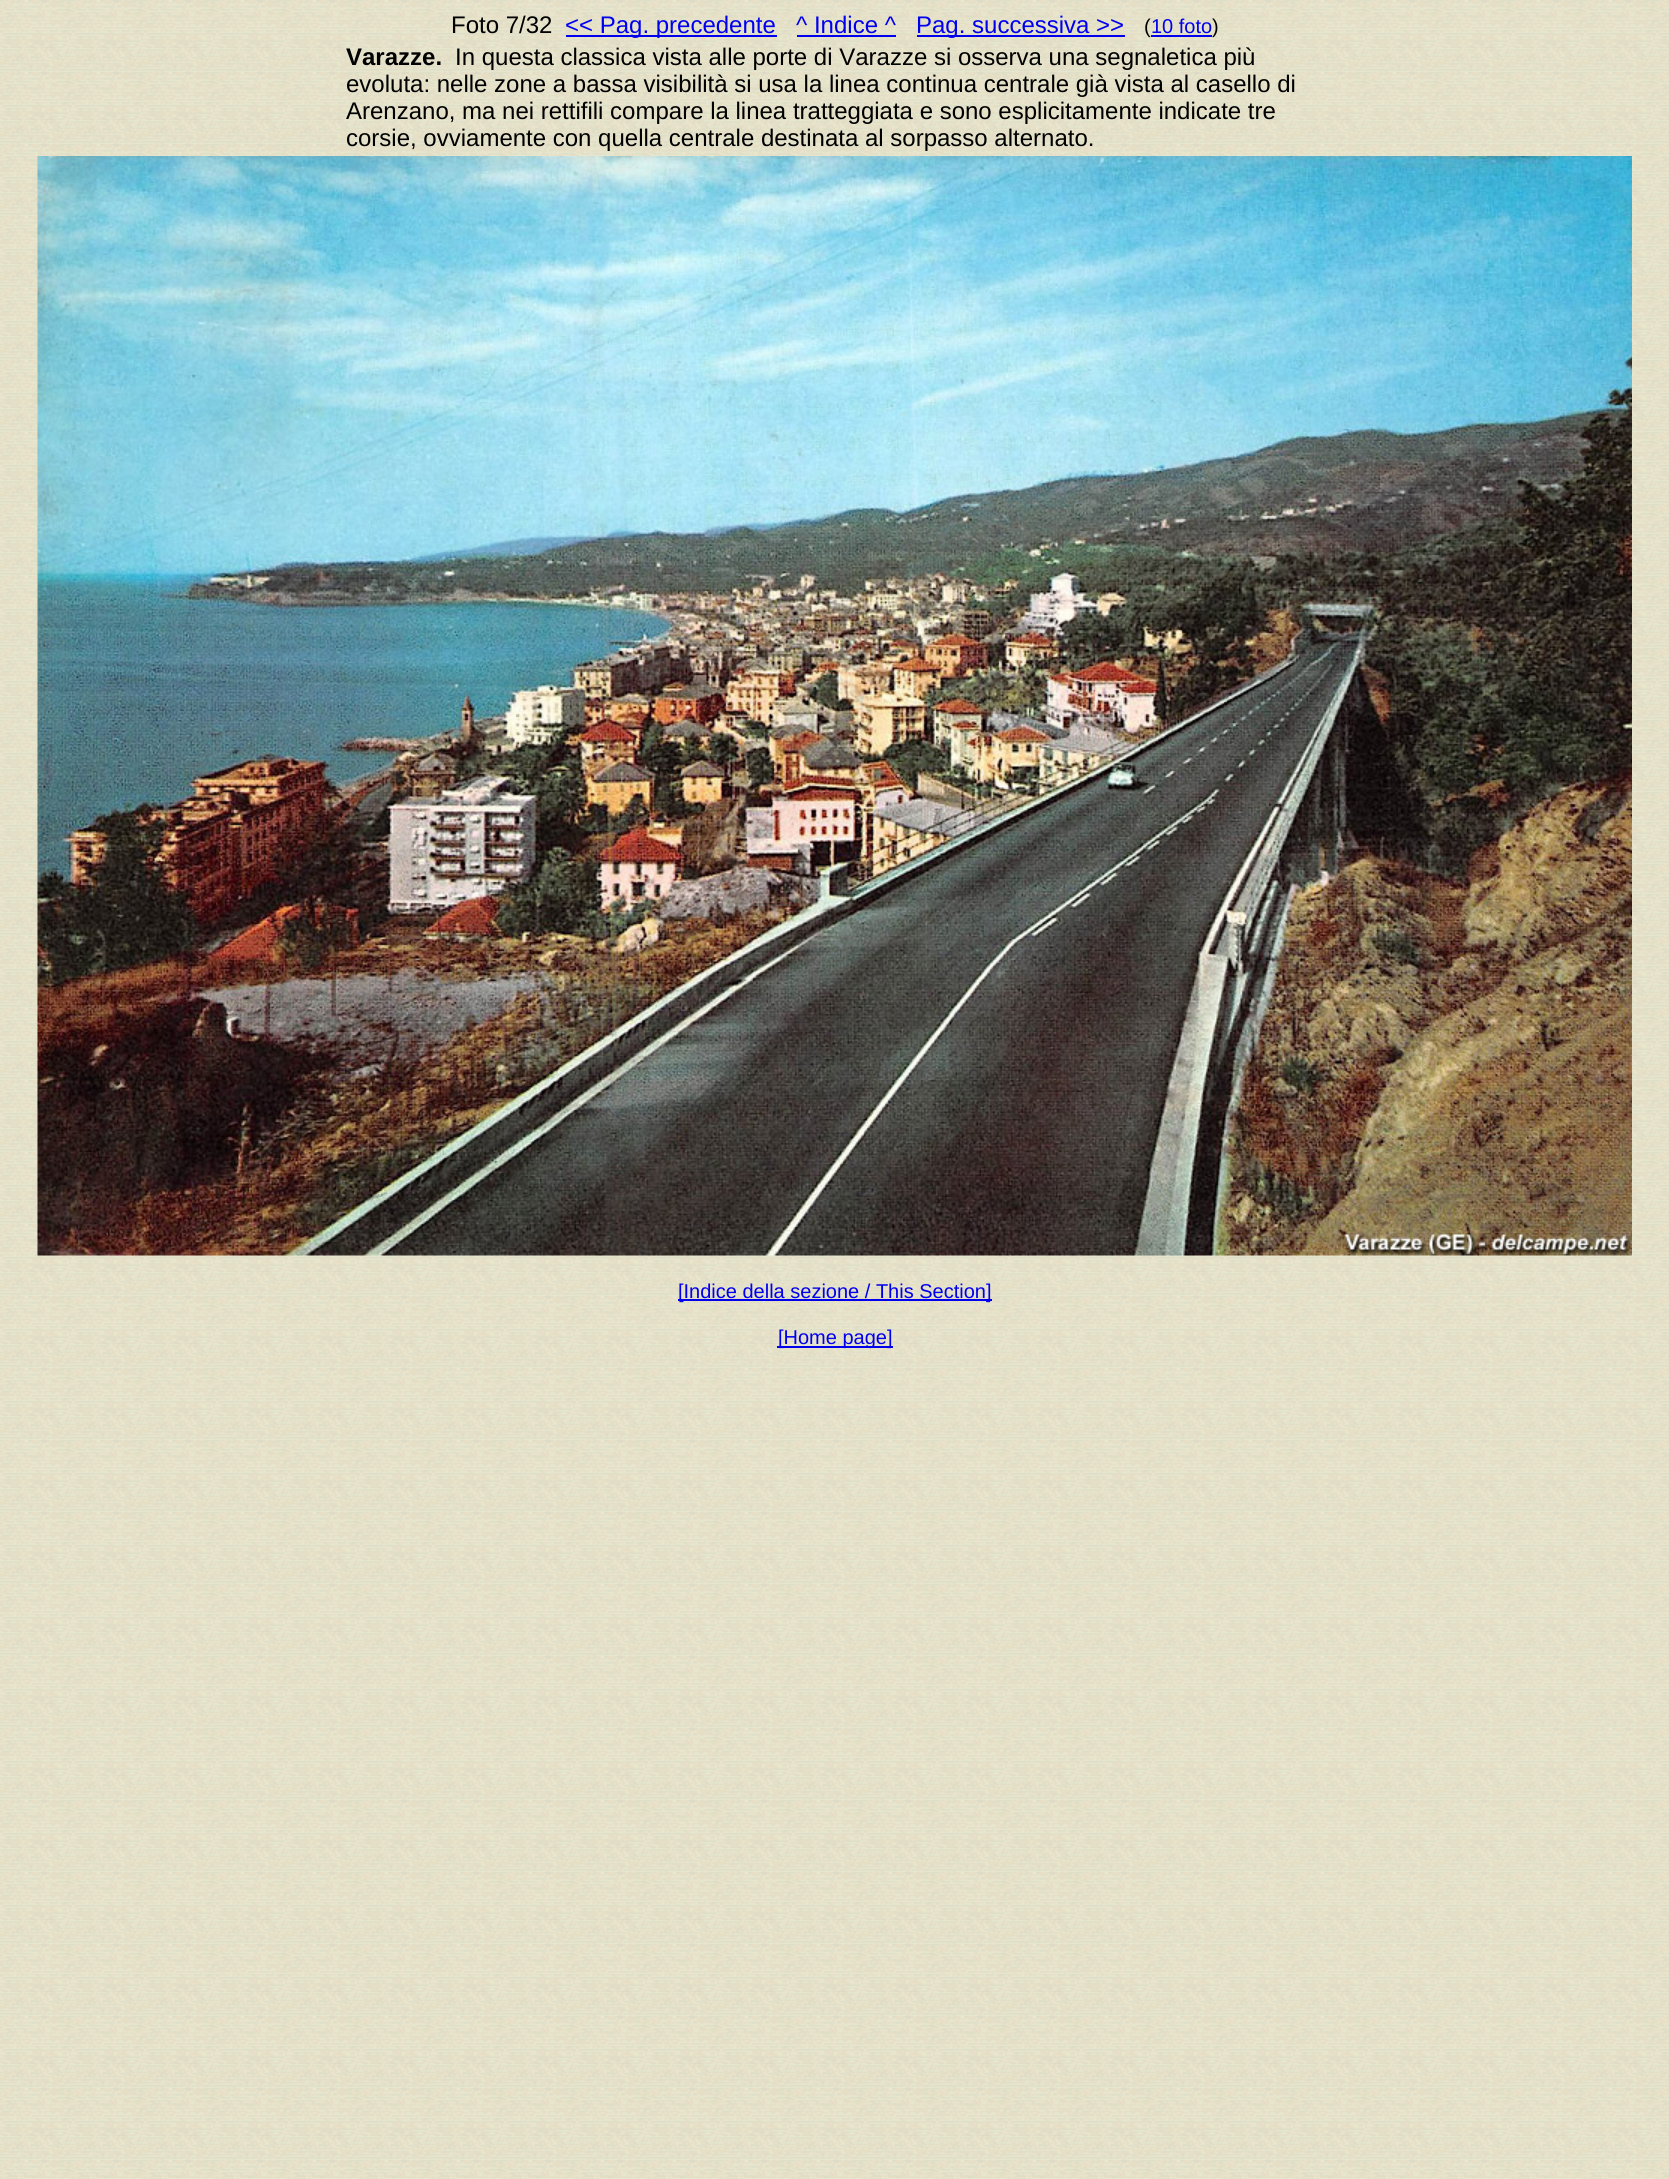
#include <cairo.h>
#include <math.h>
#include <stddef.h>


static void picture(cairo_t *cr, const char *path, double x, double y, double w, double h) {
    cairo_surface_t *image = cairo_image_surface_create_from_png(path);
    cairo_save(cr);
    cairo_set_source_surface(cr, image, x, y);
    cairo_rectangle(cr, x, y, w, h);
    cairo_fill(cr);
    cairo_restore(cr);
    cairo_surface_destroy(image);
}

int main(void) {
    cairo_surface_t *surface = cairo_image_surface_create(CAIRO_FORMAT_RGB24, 1669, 2179);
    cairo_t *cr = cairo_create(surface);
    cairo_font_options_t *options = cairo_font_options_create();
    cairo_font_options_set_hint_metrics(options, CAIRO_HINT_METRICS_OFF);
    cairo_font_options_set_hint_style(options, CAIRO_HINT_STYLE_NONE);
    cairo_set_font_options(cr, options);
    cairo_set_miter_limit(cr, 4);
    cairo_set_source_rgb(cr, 1, 1, 1);
    cairo_paint(cr);
    picture(cr, "img1.png", 0, 0, 1669, 2179);
    cairo_select_font_face(cr, "Liberation Sans", CAIRO_FONT_SLANT_NORMAL, CAIRO_FONT_WEIGHT_NORMAL);
    cairo_set_font_size(cr, 24);
    cairo_set_source_rgb(cr, 0, 0, 0);
    cairo_move_to(cr, 451, 33);
    cairo_show_text(cr, "Foto 7/32");
    cairo_set_source_rgb(cr, 0, 0, 0.933);
    cairo_rectangle(cr, 566, 35, 211, 2);
    cairo_fill(cr);
    cairo_move_to(cr, 565, 33);
    cairo_show_text(cr, "<< Pag. precedente");
    cairo_move_to(cr, 796, 33);
    cairo_show_text(cr, "^ Indice ^");
    cairo_rectangle(cr, 797, 35, 99, 2);
    cairo_fill(cr);
    cairo_rectangle(cr, 917, 35, 208, 2);
    cairo_fill(cr);
    cairo_move_to(cr, 916, 33);
    cairo_show_text(cr, "Pag. successiva >>");
    cairo_set_font_size(cr, 20);
    cairo_set_source_rgb(cr, 0, 0, 0);
    cairo_move_to(cr, 1144, 33);
    cairo_show_text(cr, "(");
    cairo_set_source_rgb(cr, 0, 0, 0.933);
    cairo_rectangle(cr, 1151, 35, 61, 2);
    cairo_fill(cr);
    cairo_move_to(cr, 1151, 33);
    cairo_show_text(cr, "10 foto");
    cairo_set_source_rgb(cr, 0, 0, 0);
    cairo_move_to(cr, 1212, 33);
    cairo_show_text(cr, ")");
    cairo_select_font_face(cr, "Liberation Sans", CAIRO_FONT_SLANT_NORMAL, CAIRO_FONT_WEIGHT_BOLD);
    cairo_set_font_size(cr, 24);
    cairo_move_to(cr, 346, 65);
    cairo_show_text(cr, "Varazze.");
    cairo_select_font_face(cr, "Liberation Sans", CAIRO_FONT_SLANT_NORMAL, CAIRO_FONT_WEIGHT_NORMAL);
    cairo_move_to(cr, 455, 65);
    cairo_show_text(cr, "In questa classica vista alle porte di Varazze si osserva una segnaletica più");
    cairo_move_to(cr, 346, 92);
    cairo_show_text(cr, "evoluta: nelle zone a bassa visibilità si usa la linea continua centrale già vista al casello di");
    cairo_move_to(cr, 346, 119);
    cairo_show_text(cr, "Arenzano, ma nei rettifili compare la linea tratteggiata e sono esplicitamente indicate tre");
    cairo_move_to(cr, 346, 146);
    cairo_show_text(cr, "corsie, ovviamente con quella centrale destinata al sorpasso alternato.");
    picture(cr, "img2.png", 37, 156, 1595, 1100);
    cairo_set_source_rgb(cr, 0, 0, 0.933);
    cairo_rectangle(cr, 678, 1299, 314, 2);
    cairo_fill(cr);
    cairo_set_font_size(cr, 20);
    cairo_move_to(cr, 678, 1298);
    cairo_show_text(cr, "[Indice della sezione / This Section]");
    cairo_rectangle(cr, 777, 1346, 116, 2);
    cairo_fill(cr);
    cairo_move_to(cr, 778, 1344);
    cairo_show_text(cr, "[Home page]");
    cairo_surface_write_to_png(surface, "page.png");
    cairo_font_options_destroy(options);
    cairo_destroy(cr);
    cairo_surface_destroy(surface);
    return 0;
}
